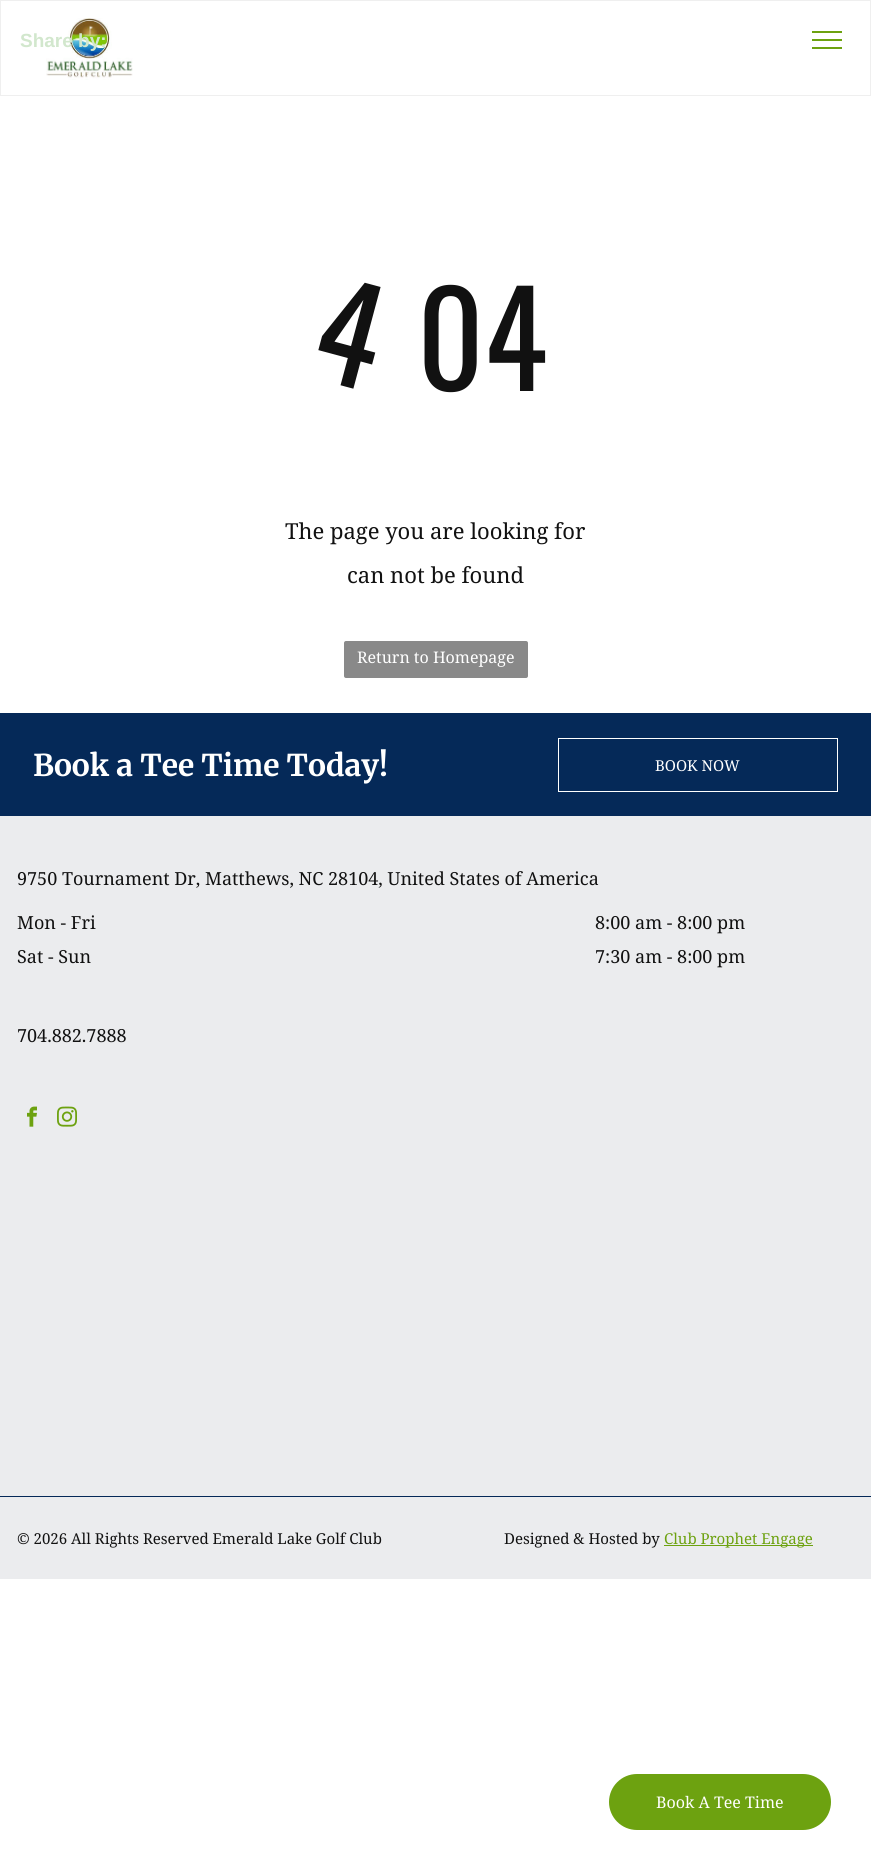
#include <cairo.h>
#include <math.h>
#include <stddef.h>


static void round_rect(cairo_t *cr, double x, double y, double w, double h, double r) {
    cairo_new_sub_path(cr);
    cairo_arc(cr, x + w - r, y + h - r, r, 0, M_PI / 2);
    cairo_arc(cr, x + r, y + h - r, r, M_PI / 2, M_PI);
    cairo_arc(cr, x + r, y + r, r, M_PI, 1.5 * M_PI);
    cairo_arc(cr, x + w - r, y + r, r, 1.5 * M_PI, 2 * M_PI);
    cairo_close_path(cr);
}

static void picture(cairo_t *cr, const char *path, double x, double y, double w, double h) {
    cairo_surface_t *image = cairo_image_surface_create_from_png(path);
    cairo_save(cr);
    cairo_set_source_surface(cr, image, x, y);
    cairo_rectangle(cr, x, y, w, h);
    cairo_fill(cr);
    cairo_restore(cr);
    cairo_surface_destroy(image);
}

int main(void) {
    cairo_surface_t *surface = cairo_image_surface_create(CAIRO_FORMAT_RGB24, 871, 1850);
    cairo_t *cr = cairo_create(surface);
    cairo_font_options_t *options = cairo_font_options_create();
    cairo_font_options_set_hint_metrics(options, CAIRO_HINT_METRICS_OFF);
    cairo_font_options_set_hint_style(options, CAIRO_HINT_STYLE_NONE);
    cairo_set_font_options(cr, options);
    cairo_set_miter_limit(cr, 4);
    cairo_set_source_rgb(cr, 1, 1, 1);
    cairo_paint(cr);
    cairo_rectangle(cr, 0.5, 0.5, 870, 95);
    cairo_set_source_rgb(cr, 0.937, 0.937, 0.937);
    cairo_set_line_width(cr, 1);
    cairo_stroke(cr);
    picture(cr, "img1.png", 46, 18, 87, 62);
    cairo_select_font_face(cr, "Liberation Sans", CAIRO_FONT_SLANT_NORMAL, CAIRO_FONT_WEIGHT_BOLD);
    cairo_set_font_size(cr, 19);
    cairo_set_source_rgb(cr, 0.824, 0.906, 0.804);
    cairo_move_to(cr, 20, 47);
    cairo_show_text(cr, "Share by:");
    cairo_set_source_rgb(cr, 0.427, 0.635, 0.063);
    cairo_rectangle(cr, 812, 31, 30, 2);
    cairo_fill(cr);
    cairo_rectangle(cr, 812, 39, 30, 2);
    cairo_fill(cr);
    cairo_rectangle(cr, 812, 47, 30, 2);
    cairo_fill(cr);
    cairo_select_font_face(cr, "Oswald", CAIRO_FONT_SLANT_NORMAL, CAIRO_FONT_WEIGHT_NORMAL);
    cairo_set_font_size(cr, 130);
    cairo_set_source_rgb(cr, 0.067, 0.067, 0.067);
    cairo_save(cr);
    cairo_translate(cr, 306, 376);
    cairo_rotate(cr, 15 * M_PI / 180);
    cairo_move_to(cr, 0, 0);
    cairo_show_text(cr, "4");
    cairo_restore(cr);
    cairo_move_to(cr, 417, 391);
    cairo_show_text(cr, "04");
    cairo_select_font_face(cr, "Noto Serif", CAIRO_FONT_SLANT_NORMAL, CAIRO_FONT_WEIGHT_NORMAL);
    cairo_set_font_size(cr, 22);
    cairo_move_to(cr, 285, 539);
    cairo_show_text(cr, "The page you are looking for");
    cairo_move_to(cr, 347, 583);
    cairo_show_text(cr, "can not be found");
    cairo_set_source_rgb(cr, 0.537, 0.537, 0.537);
    round_rect(cr, 344, 641, 184, 37, 2);
    cairo_fill(cr);
    cairo_set_font_size(cr, 16);
    cairo_set_source_rgb(cr, 1, 1, 1);
    cairo_move_to(cr, 357, 663);
    cairo_show_text(cr, "Return to Homepage");
    cairo_set_source_rgb(cr, 0.02, 0.161, 0.345);
    cairo_rectangle(cr, 0, 713, 871, 784);
    cairo_fill(cr);
    cairo_select_font_face(cr, "Merriweather", CAIRO_FONT_SLANT_NORMAL, CAIRO_FONT_WEIGHT_BOLD);
    cairo_set_font_size(cr, 30);
    cairo_set_source_rgb(cr, 1, 1, 1);
    cairo_move_to(cr, 33, 776);
    cairo_show_text(cr, "Book a Tee Time Today!");
    cairo_rectangle(cr, 558.5, 738.5, 279, 53);
    cairo_stroke(cr);
    cairo_select_font_face(cr, "Noto Serif", CAIRO_FONT_SLANT_NORMAL, CAIRO_FONT_WEIGHT_NORMAL);
    cairo_set_font_size(cr, 15);
    cairo_move_to(cr, 655, 771);
    cairo_show_text(cr, "BOOK NOW");
    cairo_set_source_rgb(cr, 0.918, 0.925, 0.933);
    cairo_rectangle(cr, 0, 816, 871, 680);
    cairo_fill(cr);
    cairo_set_font_size(cr, 18);
    cairo_set_source_rgb(cr, 0.067, 0.067, 0.067);
    cairo_move_to(cr, 17, 885);
    cairo_show_text(cr, "9750 Tournament Dr, Matthews, NC 28104, United States of America");
    cairo_move_to(cr, 17, 929);
    cairo_show_text(cr, "Mon - Fri");
    cairo_move_to(cr, 595, 929);
    cairo_show_text(cr, "8:00 am - 8:00 pm");
    cairo_move_to(cr, 17, 963);
    cairo_show_text(cr, "Sat - Sun");
    cairo_move_to(cr, 595, 963);
    cairo_show_text(cr, "7:30 am - 8:00 pm");
    cairo_move_to(cr, 17, 1042);
    cairo_show_text(cr, "704.882.7888");
    picture(cr, "img2.png", 27, 1106, 10, 21);
    picture(cr, "img3.png", 57, 1106, 20, 21);
    cairo_set_source_rgb(cr, 0.918, 0.925, 0.933);
    cairo_rectangle(cr, 0, 1497, 871, 82);
    cairo_fill(cr);
    cairo_set_font_size(cr, 15);
    cairo_set_source_rgb(cr, 0.067, 0.067, 0.067);
    cairo_move_to(cr, 17, 1544);
    cairo_show_text(cr, "© 2026 All Rights Reserved Emerald Lake Golf Club");
    cairo_move_to(cr, 504, 1544);
    cairo_show_text(cr, "Designed & Hosted by");
    cairo_set_source_rgb(cr, 0.427, 0.635, 0.063);
    cairo_rectangle(cr, 664, 1545, 149, 1);
    cairo_fill(cr);
    cairo_move_to(cr, 664, 1544);
    cairo_show_text(cr, "Club Prophet Engage");
    round_rect(cr, 609, 1774, 222, 56, 28);
    cairo_fill(cr);
    cairo_set_font_size(cr, 16);
    cairo_set_source_rgb(cr, 1, 1, 1);
    cairo_move_to(cr, 656, 1808);
    cairo_show_text(cr, "Book A Tee Time");
    cairo_surface_write_to_png(surface, "page.png");
    cairo_font_options_destroy(options);
    cairo_destroy(cr);
    cairo_surface_destroy(surface);
    return 0;
}
